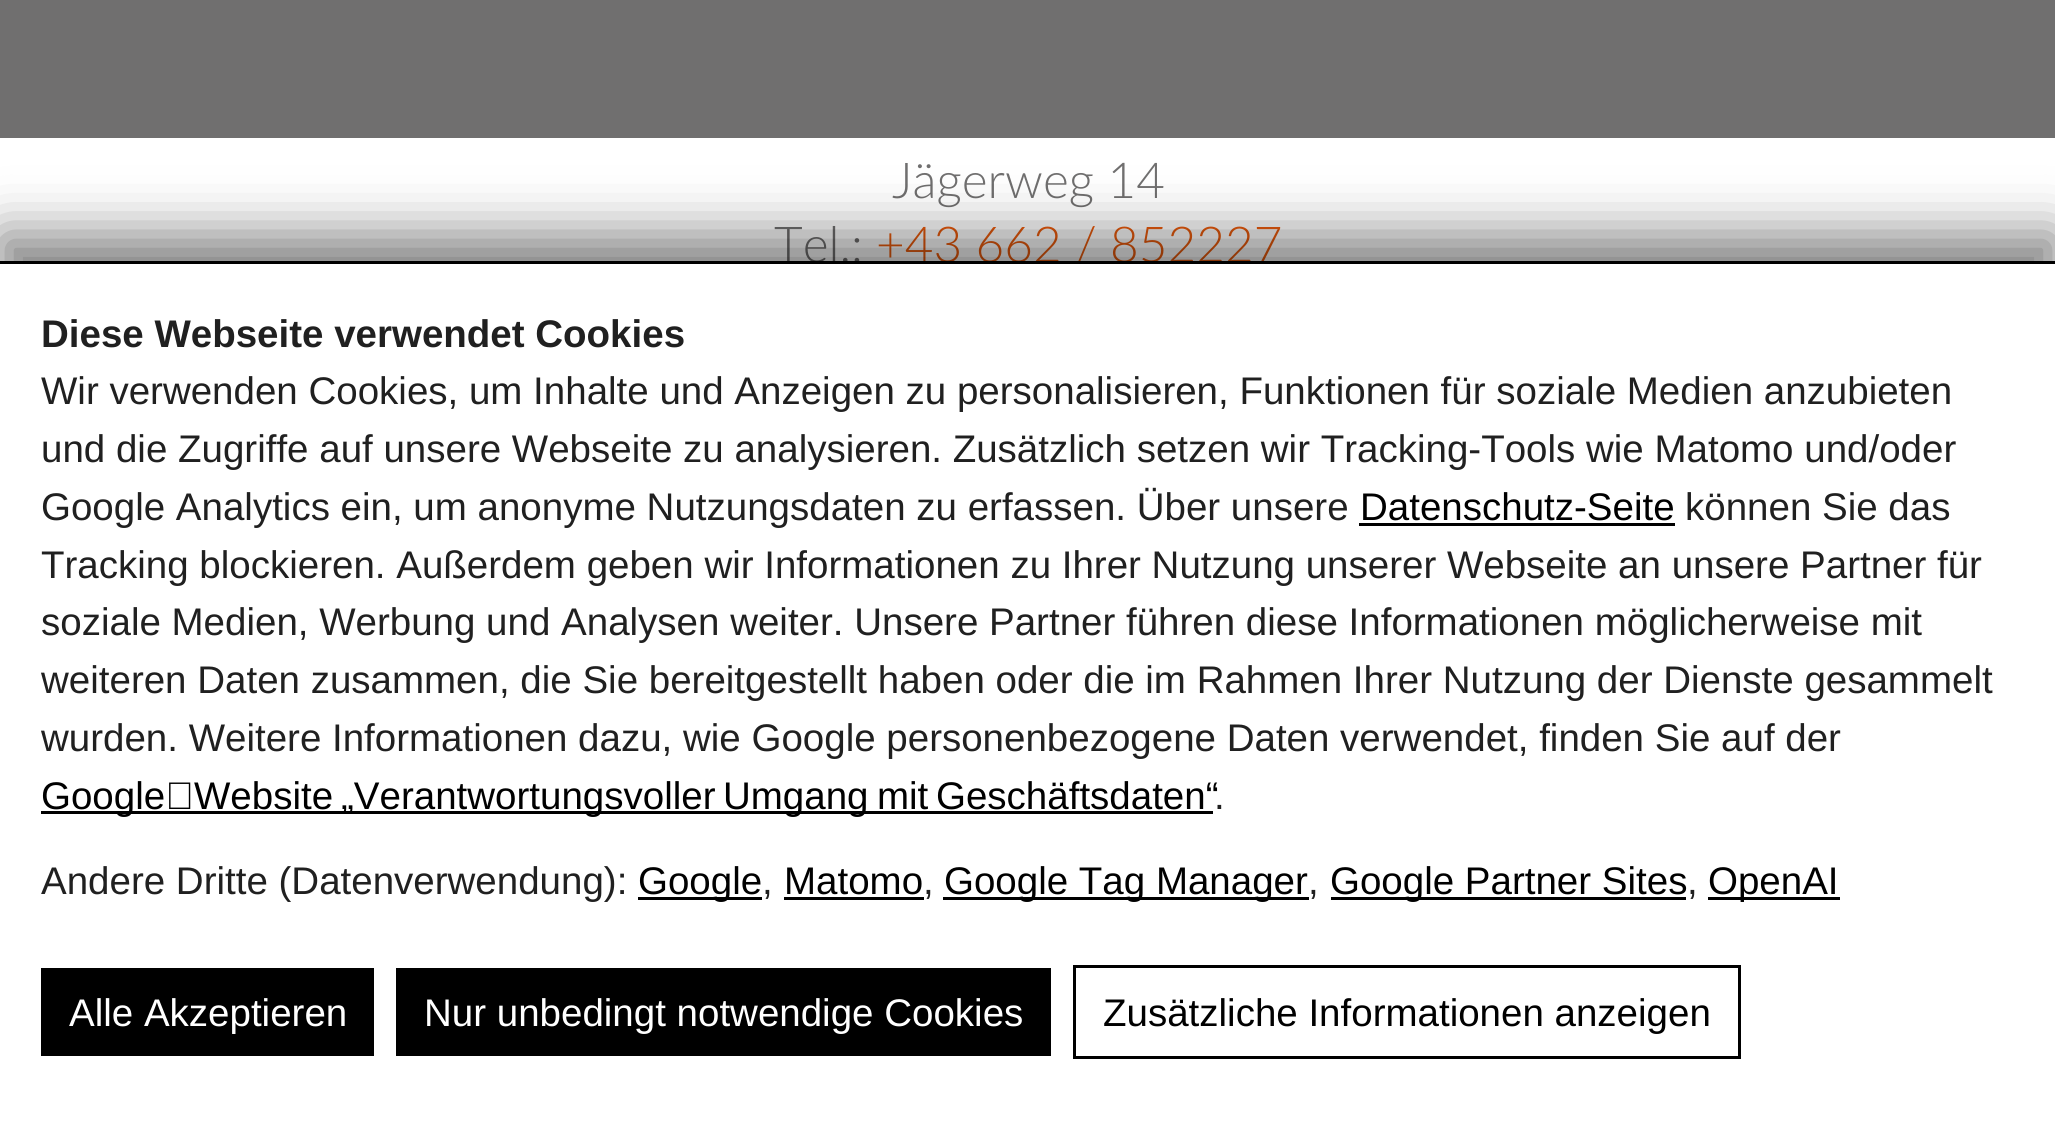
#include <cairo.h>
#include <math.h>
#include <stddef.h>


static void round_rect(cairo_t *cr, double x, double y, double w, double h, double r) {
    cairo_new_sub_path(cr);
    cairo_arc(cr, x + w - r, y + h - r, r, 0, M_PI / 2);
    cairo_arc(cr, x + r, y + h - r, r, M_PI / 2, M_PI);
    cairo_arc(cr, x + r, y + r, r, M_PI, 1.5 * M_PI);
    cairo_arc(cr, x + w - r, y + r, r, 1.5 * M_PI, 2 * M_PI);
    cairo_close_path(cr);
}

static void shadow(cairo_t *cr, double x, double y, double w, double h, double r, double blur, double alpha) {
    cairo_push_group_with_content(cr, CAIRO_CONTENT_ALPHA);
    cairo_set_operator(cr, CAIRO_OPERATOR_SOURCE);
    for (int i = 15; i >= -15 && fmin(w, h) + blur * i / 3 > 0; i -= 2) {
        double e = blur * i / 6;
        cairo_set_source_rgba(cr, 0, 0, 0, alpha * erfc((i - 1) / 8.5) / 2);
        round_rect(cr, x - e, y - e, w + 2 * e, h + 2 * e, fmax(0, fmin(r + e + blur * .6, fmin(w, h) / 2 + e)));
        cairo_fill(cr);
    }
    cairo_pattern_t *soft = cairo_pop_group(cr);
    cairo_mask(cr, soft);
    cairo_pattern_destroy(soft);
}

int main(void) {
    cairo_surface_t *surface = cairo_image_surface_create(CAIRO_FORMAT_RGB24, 2055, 1122);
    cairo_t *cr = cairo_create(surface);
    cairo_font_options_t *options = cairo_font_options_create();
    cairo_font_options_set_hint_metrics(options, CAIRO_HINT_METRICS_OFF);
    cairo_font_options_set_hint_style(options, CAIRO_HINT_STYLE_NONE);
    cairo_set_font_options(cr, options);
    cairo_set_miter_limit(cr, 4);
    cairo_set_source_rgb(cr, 1, 1, 1);
    cairo_paint(cr);
    cairo_set_source_rgb(cr, 0.439, 0.435, 0.435);
    cairo_rectangle(cr, 0, 0, 2055, 138);
    cairo_fill(cr);
    cairo_select_font_face(cr, "Lato Light", CAIRO_FONT_SLANT_NORMAL, CAIRO_FONT_WEIGHT_NORMAL);
    cairo_set_font_size(cr, 49.5);
    cairo_move_to(cr, 892, 198);
    cairo_show_text(cr, "Jägerweg 14");
    cairo_move_to(cr, 774, 262);
    cairo_show_text(cr, "Tel.:");
    cairo_set_source_rgb(cr, 0.918, 0.357, 0.047);
    cairo_move_to(cr, 876, 262);
    cairo_show_text(cr, "+43 662 / 852227");
    cairo_set_source_rgb(cr, 0, 0, 0);
    shadow(cr, 0, 234, 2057, 861, 0, 27.5, 0.5);
    cairo_set_source_rgb(cr, 1, 1, 1);
    cairo_rectangle(cr, 0, 264, 2055, 858);
    cairo_fill(cr);
    cairo_set_source_rgb(cr, 0, 0, 0);
    cairo_rectangle(cr, 0, 261, 2055, 3);
    cairo_fill(cr);
    cairo_select_font_face(cr, "Liberation Sans", CAIRO_FONT_SLANT_NORMAL, CAIRO_FONT_WEIGHT_BOLD);
    cairo_set_font_size(cr, 38.5);
    cairo_set_source_rgb(cr, 0.125, 0.125, 0.125);
    cairo_move_to(cr, 41, 347);
    cairo_show_text(cr, "Diese Webseite verwendet Cookies");
    cairo_select_font_face(cr, "Liberation Sans", CAIRO_FONT_SLANT_NORMAL, CAIRO_FONT_WEIGHT_NORMAL);
    cairo_move_to(cr, 41, 404);
    cairo_show_text(cr, "Wir verwenden Cookies, um Inhalte und Anzeigen zu personalisieren, Funktionen für soziale Medien anzubieten");
    cairo_move_to(cr, 41, 462);
    cairo_show_text(cr, "und die Zugriffe auf unsere Webseite zu analysieren. Zusätzlich setzen wir Tracking-Tools wie Matomo und/oder");
    cairo_move_to(cr, 41, 520);
    cairo_show_text(cr, "Google Analytics ein, um anonyme Nutzungsdaten zu erfassen. Über unsere");
    cairo_set_source_rgb(cr, 0, 0, 0);
    cairo_move_to(cr, 1360, 520);
    cairo_show_text(cr, "Datenschutz-Seite");
    cairo_rectangle(cr, 1359, 523, 316, 3);
    cairo_fill(cr);
    cairo_set_source_rgb(cr, 0.125, 0.125, 0.125);
    cairo_move_to(cr, 1685, 520);
    cairo_show_text(cr, "können Sie das");
    cairo_move_to(cr, 41, 578);
    cairo_show_text(cr, "Tracking blockieren. Außerdem geben wir Informationen zu Ihrer Nutzung unserer Webseite an unsere Partner für");
    cairo_move_to(cr, 41, 635);
    cairo_show_text(cr, "soziale Medien, Werbung und Analysen weiter. Unsere Partner führen diese Informationen möglicherweise mit");
    cairo_move_to(cr, 41, 693);
    cairo_show_text(cr, "weiteren Daten zusammen, die Sie bereitgestellt haben oder die im Rahmen Ihrer Nutzung der Dienste gesammelt");
    cairo_move_to(cr, 41, 751);
    cairo_show_text(cr, "wurden. Weitere Informationen dazu, wie Google personenbezogene Daten verwendet, finden Sie auf der");
    cairo_set_source_rgb(cr, 0, 0, 0);
    cairo_rectangle(cr, 41, 811, 1172, 3);
    cairo_fill(cr);
    cairo_move_to(cr, 41, 809);
    cairo_show_text(cr, "Google‑Website");
    cairo_move_to(cr, 341, 809);
    cairo_show_text(cr, "„Verantwortungsvoller");
    cairo_move_to(cr, 723, 809);
    cairo_show_text(cr, "Umgang");
    cairo_move_to(cr, 877, 809);
    cairo_show_text(cr, "mit");
    cairo_move_to(cr, 936, 809);
    cairo_show_text(cr, "Geschäftsdaten“");
    cairo_set_source_rgb(cr, 0.125, 0.125, 0.125);
    cairo_move_to(cr, 1214, 809);
    cairo_show_text(cr, ".");
    cairo_move_to(cr, 41, 894);
    cairo_show_text(cr, "Andere Dritte (Datenverwendung):");
    cairo_set_source_rgb(cr, 0, 0, 0);
    cairo_rectangle(cr, 638, 897, 124, 3);
    cairo_fill(cr);
    cairo_move_to(cr, 638, 894);
    cairo_show_text(cr, "Google");
    cairo_set_source_rgb(cr, 0.125, 0.125, 0.125);
    cairo_move_to(cr, 762, 894);
    cairo_show_text(cr, ",");
    cairo_set_source_rgb(cr, 0, 0, 0);
    cairo_move_to(cr, 784, 894);
    cairo_show_text(cr, "Matomo");
    cairo_rectangle(cr, 784, 897, 140, 3);
    cairo_fill(cr);
    cairo_set_source_rgb(cr, 0.125, 0.125, 0.125);
    cairo_move_to(cr, 923, 894);
    cairo_show_text(cr, ",");
    cairo_set_source_rgb(cr, 0, 0, 0);
    cairo_rectangle(cr, 943, 897, 366, 3);
    cairo_fill(cr);
    cairo_move_to(cr, 944, 894);
    cairo_show_text(cr, "Google Tag Manager");
    cairo_set_source_rgb(cr, 0.125, 0.125, 0.125);
    cairo_move_to(cr, 1308, 894);
    cairo_show_text(cr, ",");
    cairo_set_source_rgb(cr, 0, 0, 0);
    cairo_rectangle(cr, 1331, 897, 355, 3);
    cairo_fill(cr);
    cairo_move_to(cr, 1330, 894);
    cairo_show_text(cr, "Google Partner Sites");
    cairo_set_source_rgb(cr, 0.125, 0.125, 0.125);
    cairo_move_to(cr, 1687, 894);
    cairo_show_text(cr, ",");
    cairo_set_source_rgb(cr, 0, 0, 0);
    cairo_rectangle(cr, 1708, 897, 132, 3);
    cairo_fill(cr);
    cairo_move_to(cr, 1708, 894);
    cairo_show_text(cr, "OpenAI");
    cairo_rectangle(cr, 41, 968, 333, 88);
    cairo_fill(cr);
    cairo_set_source_rgb(cr, 1, 1, 1);
    cairo_move_to(cr, 69, 1026);
    cairo_show_text(cr, "Alle Akzeptieren");
    cairo_set_source_rgb(cr, 0, 0, 0);
    cairo_rectangle(cr, 396, 968, 655, 88);
    cairo_fill(cr);
    cairo_set_source_rgb(cr, 1, 1, 1);
    cairo_move_to(cr, 424, 1026);
    cairo_show_text(cr, "Nur unbedingt notwendige Cookies");
    cairo_rectangle(cr, 1074.5, 966.5, 665, 91);
    cairo_set_source_rgb(cr, 0, 0, 0);
    cairo_set_line_width(cr, 3);
    cairo_stroke(cr);
    cairo_move_to(cr, 1103, 1026);
    cairo_show_text(cr, "Zusätzliche Informationen anzeigen");
    cairo_surface_write_to_png(surface, "page.png");
    cairo_font_options_destroy(options);
    cairo_destroy(cr);
    cairo_surface_destroy(surface);
    return 0;
}
